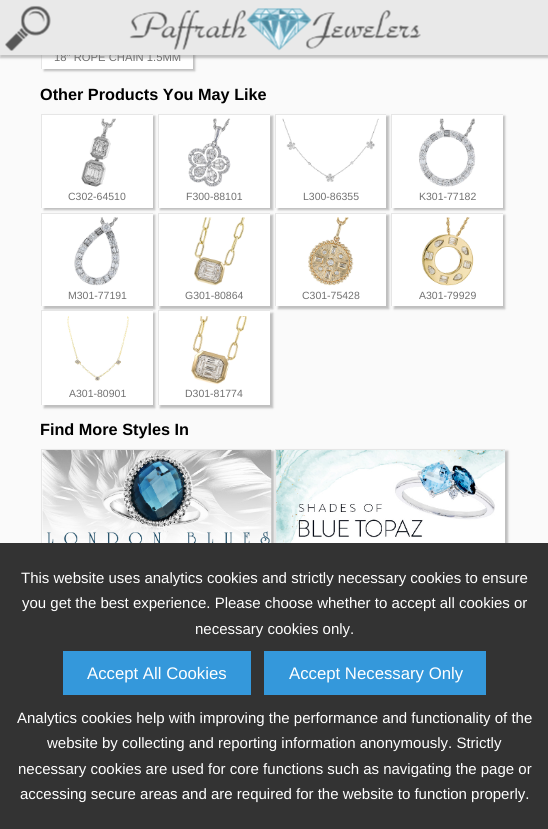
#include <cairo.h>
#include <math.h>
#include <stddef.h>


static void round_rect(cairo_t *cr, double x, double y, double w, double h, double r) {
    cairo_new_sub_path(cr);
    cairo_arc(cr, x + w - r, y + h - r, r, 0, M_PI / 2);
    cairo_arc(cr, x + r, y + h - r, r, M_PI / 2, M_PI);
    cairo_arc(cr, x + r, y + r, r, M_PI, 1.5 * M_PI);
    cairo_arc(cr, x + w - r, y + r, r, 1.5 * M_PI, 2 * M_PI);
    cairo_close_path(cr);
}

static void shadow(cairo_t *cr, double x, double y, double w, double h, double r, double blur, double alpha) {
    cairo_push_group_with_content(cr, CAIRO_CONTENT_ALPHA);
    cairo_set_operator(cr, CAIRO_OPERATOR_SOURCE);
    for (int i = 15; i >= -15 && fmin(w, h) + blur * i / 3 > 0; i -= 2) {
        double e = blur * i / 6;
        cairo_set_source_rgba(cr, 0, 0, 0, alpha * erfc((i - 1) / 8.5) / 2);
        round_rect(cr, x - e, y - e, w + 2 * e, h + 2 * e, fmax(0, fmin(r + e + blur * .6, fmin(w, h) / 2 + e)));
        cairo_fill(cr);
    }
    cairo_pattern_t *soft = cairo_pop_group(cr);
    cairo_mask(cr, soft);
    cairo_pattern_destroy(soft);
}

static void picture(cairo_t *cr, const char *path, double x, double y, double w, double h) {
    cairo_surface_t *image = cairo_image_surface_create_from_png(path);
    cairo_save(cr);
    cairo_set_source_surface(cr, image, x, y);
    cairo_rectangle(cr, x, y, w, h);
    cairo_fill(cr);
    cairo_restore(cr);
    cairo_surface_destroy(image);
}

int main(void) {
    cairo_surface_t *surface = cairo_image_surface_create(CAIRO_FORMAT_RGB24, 548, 829);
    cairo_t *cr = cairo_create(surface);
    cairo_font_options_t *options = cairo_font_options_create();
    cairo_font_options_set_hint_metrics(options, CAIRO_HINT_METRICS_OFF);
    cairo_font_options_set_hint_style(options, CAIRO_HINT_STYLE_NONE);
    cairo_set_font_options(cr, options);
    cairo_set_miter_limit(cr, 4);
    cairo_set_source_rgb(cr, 0.98, 0.98, 0.98);
    cairo_paint(cr);
    cairo_set_source_rgb(cr, 0.706, 0.706, 0.706);
    shadow(cr, 44, -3, 151, 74, 0, 1, 0.85);
    cairo_set_source_rgb(cr, 1, 1, 1);
    cairo_rectangle(cr, 42, 55, 151, 14);
    cairo_fill(cr);
    cairo_set_source_rgb(cr, 0.902, 0.902, 0.902);
    cairo_rectangle(cr, 41, 55, 1, 14);
    cairo_fill(cr);
    cairo_set_source_rgb(cr, 0.467, 0.467, 0.467);
    shadow(cr, 0, 3, 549, 55, 0, 1, 0.42);
    cairo_select_font_face(cr, "Liberation Sans", CAIRO_FONT_SLANT_NORMAL, CAIRO_FONT_WEIGHT_NORMAL);
    cairo_set_font_size(cr, 11.25);
    cairo_set_source_rgb(cr, 0.443, 0.443, 0.443);
    cairo_move_to(cr, 54, 61);
    cairo_show_text(cr, "18\" ROPE CHAIN 1.5MM");
    cairo_set_source_rgb(cr, 0.914, 0.914, 0.914);
    cairo_rectangle(cr, 0, 0, 548, 55);
    cairo_fill(cr);
    picture(cr, "img1.png", 5, 5, 46, 46);
    picture(cr, "img2.png", 129, 8, 292, 43);
    cairo_select_font_face(cr, "Liberation Sans", CAIRO_FONT_SLANT_NORMAL, CAIRO_FONT_WEIGHT_BOLD);
    cairo_set_font_size(cr, 16.25);
    cairo_set_source_rgb(cr, 0, 0, 0);
    cairo_move_to(cr, 40, 100);
    cairo_show_text(cr, "Other Products You May Like");
    cairo_set_source_rgb(cr, 0.706, 0.706, 0.706);
    shadow(cr, 44, 116, 111, 94, 0, 1, 0.85);
    cairo_set_source_rgb(cr, 1, 1, 1);
    cairo_rectangle(cr, 42, 115, 111, 93);
    cairo_fill(cr);
    cairo_set_source_rgb(cr, 0.902, 0.902, 0.902);
    cairo_rectangle(cr, 41, 114, 112, 1);
    cairo_fill(cr);
    cairo_rectangle(cr, 41, 114, 1, 94);
    cairo_fill(cr);
    picture(cr, "img3.png", 81, 118, 35, 69);
    cairo_select_font_face(cr, "Liberation Sans", CAIRO_FONT_SLANT_NORMAL, CAIRO_FONT_WEIGHT_NORMAL);
    cairo_set_font_size(cr, 10.5);
    cairo_set_source_rgb(cr, 0.443, 0.443, 0.443);
    cairo_move_to(cr, 68, 200);
    cairo_show_text(cr, "C302-64510");
    cairo_set_source_rgb(cr, 0.706, 0.706, 0.706);
    shadow(cr, 160, 116, 113, 94, 0, 1, 0.85);
    cairo_set_source_rgb(cr, 1, 1, 1);
    cairo_rectangle(cr, 159, 115, 111, 93);
    cairo_fill(cr);
    cairo_set_source_rgb(cr, 0.902, 0.902, 0.902);
    cairo_rectangle(cr, 158, 114, 112, 1);
    cairo_fill(cr);
    cairo_rectangle(cr, 158, 114, 1, 94);
    cairo_fill(cr);
    picture(cr, "img4.png", 188, 118, 43, 69);
    cairo_set_source_rgb(cr, 0.443, 0.443, 0.443);
    cairo_move_to(cr, 186, 200);
    cairo_show_text(cr, "F300-88101");
    cairo_set_source_rgb(cr, 0.706, 0.706, 0.706);
    shadow(cr, 278, 116, 111, 94, 0, 1, 0.85);
    cairo_set_source_rgb(cr, 1, 1, 1);
    cairo_rectangle(cr, 276, 115, 110, 93);
    cairo_fill(cr);
    cairo_set_source_rgb(cr, 0.902, 0.902, 0.902);
    cairo_rectangle(cr, 275, 114, 111, 1);
    cairo_fill(cr);
    cairo_rectangle(cr, 275, 114, 1, 94);
    cairo_fill(cr);
    picture(cr, "img5.png", 282, 118, 97, 64);
    cairo_set_source_rgb(cr, 0.443, 0.443, 0.443);
    cairo_move_to(cr, 303, 200);
    cairo_show_text(cr, "L300-86355");
    cairo_set_source_rgb(cr, 0.706, 0.706, 0.706);
    shadow(cr, 394, 116, 111, 94, 0, 1, 0.85);
    cairo_set_source_rgb(cr, 1, 1, 1);
    cairo_rectangle(cr, 392, 115, 111, 93);
    cairo_fill(cr);
    cairo_set_source_rgb(cr, 0.902, 0.902, 0.902);
    cairo_rectangle(cr, 391, 114, 112, 1);
    cairo_fill(cr);
    cairo_rectangle(cr, 391, 114, 1, 94);
    cairo_fill(cr);
    picture(cr, "img6.png", 418, 118, 58, 69);
    cairo_set_source_rgb(cr, 0.443, 0.443, 0.443);
    cairo_move_to(cr, 419, 200);
    cairo_show_text(cr, "K301-77182");
    cairo_set_source_rgb(cr, 0.706, 0.706, 0.706);
    shadow(cr, 44, 215, 111, 94, 0, 1, 0.85);
    cairo_set_source_rgb(cr, 1, 1, 1);
    cairo_rectangle(cr, 42, 214, 111, 92);
    cairo_fill(cr);
    cairo_set_source_rgb(cr, 0.902, 0.902, 0.902);
    cairo_rectangle(cr, 41, 213, 112, 1);
    cairo_fill(cr);
    cairo_rectangle(cr, 41, 213, 1, 93);
    cairo_fill(cr);
    picture(cr, "img7.png", 74, 217, 46, 69);
    cairo_set_source_rgb(cr, 0.443, 0.443, 0.443);
    cairo_move_to(cr, 68, 299);
    cairo_show_text(cr, "M301-77191");
    cairo_set_source_rgb(cr, 0.706, 0.706, 0.706);
    shadow(cr, 160, 215, 113, 94, 0, 1, 0.85);
    cairo_set_source_rgb(cr, 1, 1, 1);
    cairo_rectangle(cr, 159, 214, 111, 92);
    cairo_fill(cr);
    cairo_set_source_rgb(cr, 0.902, 0.902, 0.902);
    cairo_rectangle(cr, 158, 213, 112, 1);
    cairo_fill(cr);
    cairo_rectangle(cr, 158, 213, 1, 93);
    cairo_fill(cr);
    picture(cr, "img8.png", 194, 217, 51, 69);
    cairo_set_source_rgb(cr, 0.443, 0.443, 0.443);
    cairo_move_to(cr, 185, 299);
    cairo_show_text(cr, "G301-80864");
    cairo_set_source_rgb(cr, 0.706, 0.706, 0.706);
    shadow(cr, 278, 215, 111, 94, 0, 1, 0.85);
    cairo_set_source_rgb(cr, 1, 1, 1);
    cairo_rectangle(cr, 276, 214, 110, 92);
    cairo_fill(cr);
    cairo_set_source_rgb(cr, 0.902, 0.902, 0.902);
    cairo_rectangle(cr, 275, 213, 111, 1);
    cairo_fill(cr);
    cairo_rectangle(cr, 275, 213, 1, 93);
    cairo_fill(cr);
    picture(cr, "img9.png", 308, 217, 46, 69);
    cairo_set_source_rgb(cr, 0.443, 0.443, 0.443);
    cairo_move_to(cr, 302, 299);
    cairo_show_text(cr, "C301-75428");
    cairo_set_source_rgb(cr, 0.706, 0.706, 0.706);
    shadow(cr, 394, 215, 111, 94, 0, 1, 0.85);
    cairo_set_source_rgb(cr, 1, 1, 1);
    cairo_rectangle(cr, 392, 214, 111, 92);
    cairo_fill(cr);
    cairo_set_source_rgb(cr, 0.902, 0.902, 0.902);
    cairo_rectangle(cr, 391, 213, 112, 1);
    cairo_fill(cr);
    cairo_rectangle(cr, 391, 213, 1, 93);
    cairo_fill(cr);
    picture(cr, "img10.png", 421, 217, 53, 69);
    cairo_set_source_rgb(cr, 0.443, 0.443, 0.443);
    cairo_move_to(cr, 419, 299);
    cairo_show_text(cr, "A301-79929");
    cairo_set_source_rgb(cr, 0.706, 0.706, 0.706);
    shadow(cr, 44, 313, 111, 95, 0, 1, 0.85);
    cairo_set_source_rgb(cr, 1, 1, 1);
    cairo_rectangle(cr, 42, 311, 111, 94);
    cairo_fill(cr);
    cairo_set_source_rgb(cr, 0.902, 0.902, 0.902);
    cairo_rectangle(cr, 41, 310, 112, 1);
    cairo_fill(cr);
    cairo_rectangle(cr, 41, 310, 1, 95);
    cairo_fill(cr);
    picture(cr, "img11.png", 67, 316, 62, 65);
    cairo_set_source_rgb(cr, 0.443, 0.443, 0.443);
    cairo_move_to(cr, 69, 397);
    cairo_show_text(cr, "A301-80901");
    cairo_set_source_rgb(cr, 0.706, 0.706, 0.706);
    shadow(cr, 160, 313, 113, 95, 0, 1, 0.85);
    cairo_set_source_rgb(cr, 1, 1, 1);
    cairo_rectangle(cr, 159, 311, 111, 94);
    cairo_fill(cr);
    cairo_set_source_rgb(cr, 0.902, 0.902, 0.902);
    cairo_rectangle(cr, 158, 310, 112, 1);
    cairo_fill(cr);
    cairo_rectangle(cr, 158, 310, 1, 95);
    cairo_fill(cr);
    picture(cr, "img12.png", 191, 316, 56, 69);
    cairo_set_source_rgb(cr, 0.443, 0.443, 0.443);
    cairo_move_to(cr, 185, 397);
    cairo_show_text(cr, "D301-81774");
    cairo_select_font_face(cr, "Liberation Sans", CAIRO_FONT_SLANT_NORMAL, CAIRO_FONT_WEIGHT_BOLD);
    cairo_set_font_size(cr, 16.25);
    cairo_set_source_rgb(cr, 0, 0, 0);
    cairo_move_to(cr, 40, 435);
    cairo_show_text(cr, "Find More Styles In");
    cairo_set_source_rgb(cr, 0.706, 0.706, 0.706);
    shadow(cr, 44, 451, 230, 99, 0, 1, 0.85);
    cairo_set_source_rgb(cr, 1, 1, 1);
    cairo_rectangle(cr, 42, 450, 1, 93);
    cairo_fill(cr);
    cairo_set_source_rgb(cr, 0.902, 0.902, 0.902);
    cairo_rectangle(cr, 41, 449, 230, 1);
    cairo_fill(cr);
    cairo_rectangle(cr, 41, 449, 1, 99);
    cairo_fill(cr);
    picture(cr, "img13.png", 42, 450, 230, 93);
    cairo_set_source_rgb(cr, 0.706, 0.706, 0.706);
    shadow(cr, 278, 451, 230, 99, 0, 1, 0.85);
    cairo_set_source_rgb(cr, 0.902, 0.902, 0.902);
    cairo_rectangle(cr, 275, 449, 230, 1);
    cairo_fill(cr);
    cairo_rectangle(cr, 275, 449, 1, 99);
    cairo_fill(cr);
    picture(cr, "img14.png", 276, 450, 229, 93);
    cairo_set_source_rgb(cr, 0.2, 0.2, 0.2);
    cairo_rectangle(cr, 0, 543, 548, 286);
    cairo_fill(cr);
    cairo_select_font_face(cr, "Liberation Sans", CAIRO_FONT_SLANT_NORMAL, CAIRO_FONT_WEIGHT_NORMAL);
    cairo_set_font_size(cr, 15);
    cairo_set_source_rgb(cr, 1, 1, 1);
    cairo_move_to(cr, 21, 583);
    cairo_show_text(cr, "This website uses analytics cookies and strictly necessary cookies to ensure");
    cairo_move_to(cr, 22, 608);
    cairo_show_text(cr, "you get the best experience. Please choose whether to accept all cookies or");
    cairo_move_to(cr, 195, 634);
    cairo_show_text(cr, "necessary cookies only.");
    cairo_set_source_rgb(cr, 0.204, 0.596, 0.859);
    cairo_rectangle(cr, 63, 651, 188, 44);
    cairo_fill(cr);
    cairo_set_font_size(cr, 16.75);
    cairo_set_source_rgb(cr, 1, 1, 1);
    cairo_move_to(cr, 87, 679);
    cairo_show_text(cr, "Accept All Cookies");
    cairo_set_source_rgb(cr, 0.204, 0.596, 0.859);
    cairo_rectangle(cr, 264, 651, 222, 44);
    cairo_fill(cr);
    cairo_set_source_rgb(cr, 1, 1, 1);
    cairo_move_to(cr, 289, 679);
    cairo_show_text(cr, "Accept Necessary Only");
    cairo_set_font_size(cr, 15);
    cairo_move_to(cr, 17, 723);
    cairo_show_text(cr, "Analytics cookies help with improving the performance and functionality of the");
    cairo_move_to(cr, 47, 748);
    cairo_show_text(cr, "website by collecting and reporting information anonymously. Strictly");
    cairo_move_to(cr, 18, 774);
    cairo_show_text(cr, "necessary cookies are used for core functions such as navigating the page or");
    cairo_move_to(cr, 20, 799);
    cairo_show_text(cr, "accessing secure areas and are required for the website to function properly.");
    cairo_surface_write_to_png(surface, "page.png");
    cairo_font_options_destroy(options);
    cairo_destroy(cr);
    cairo_surface_destroy(surface);
    return 0;
}
